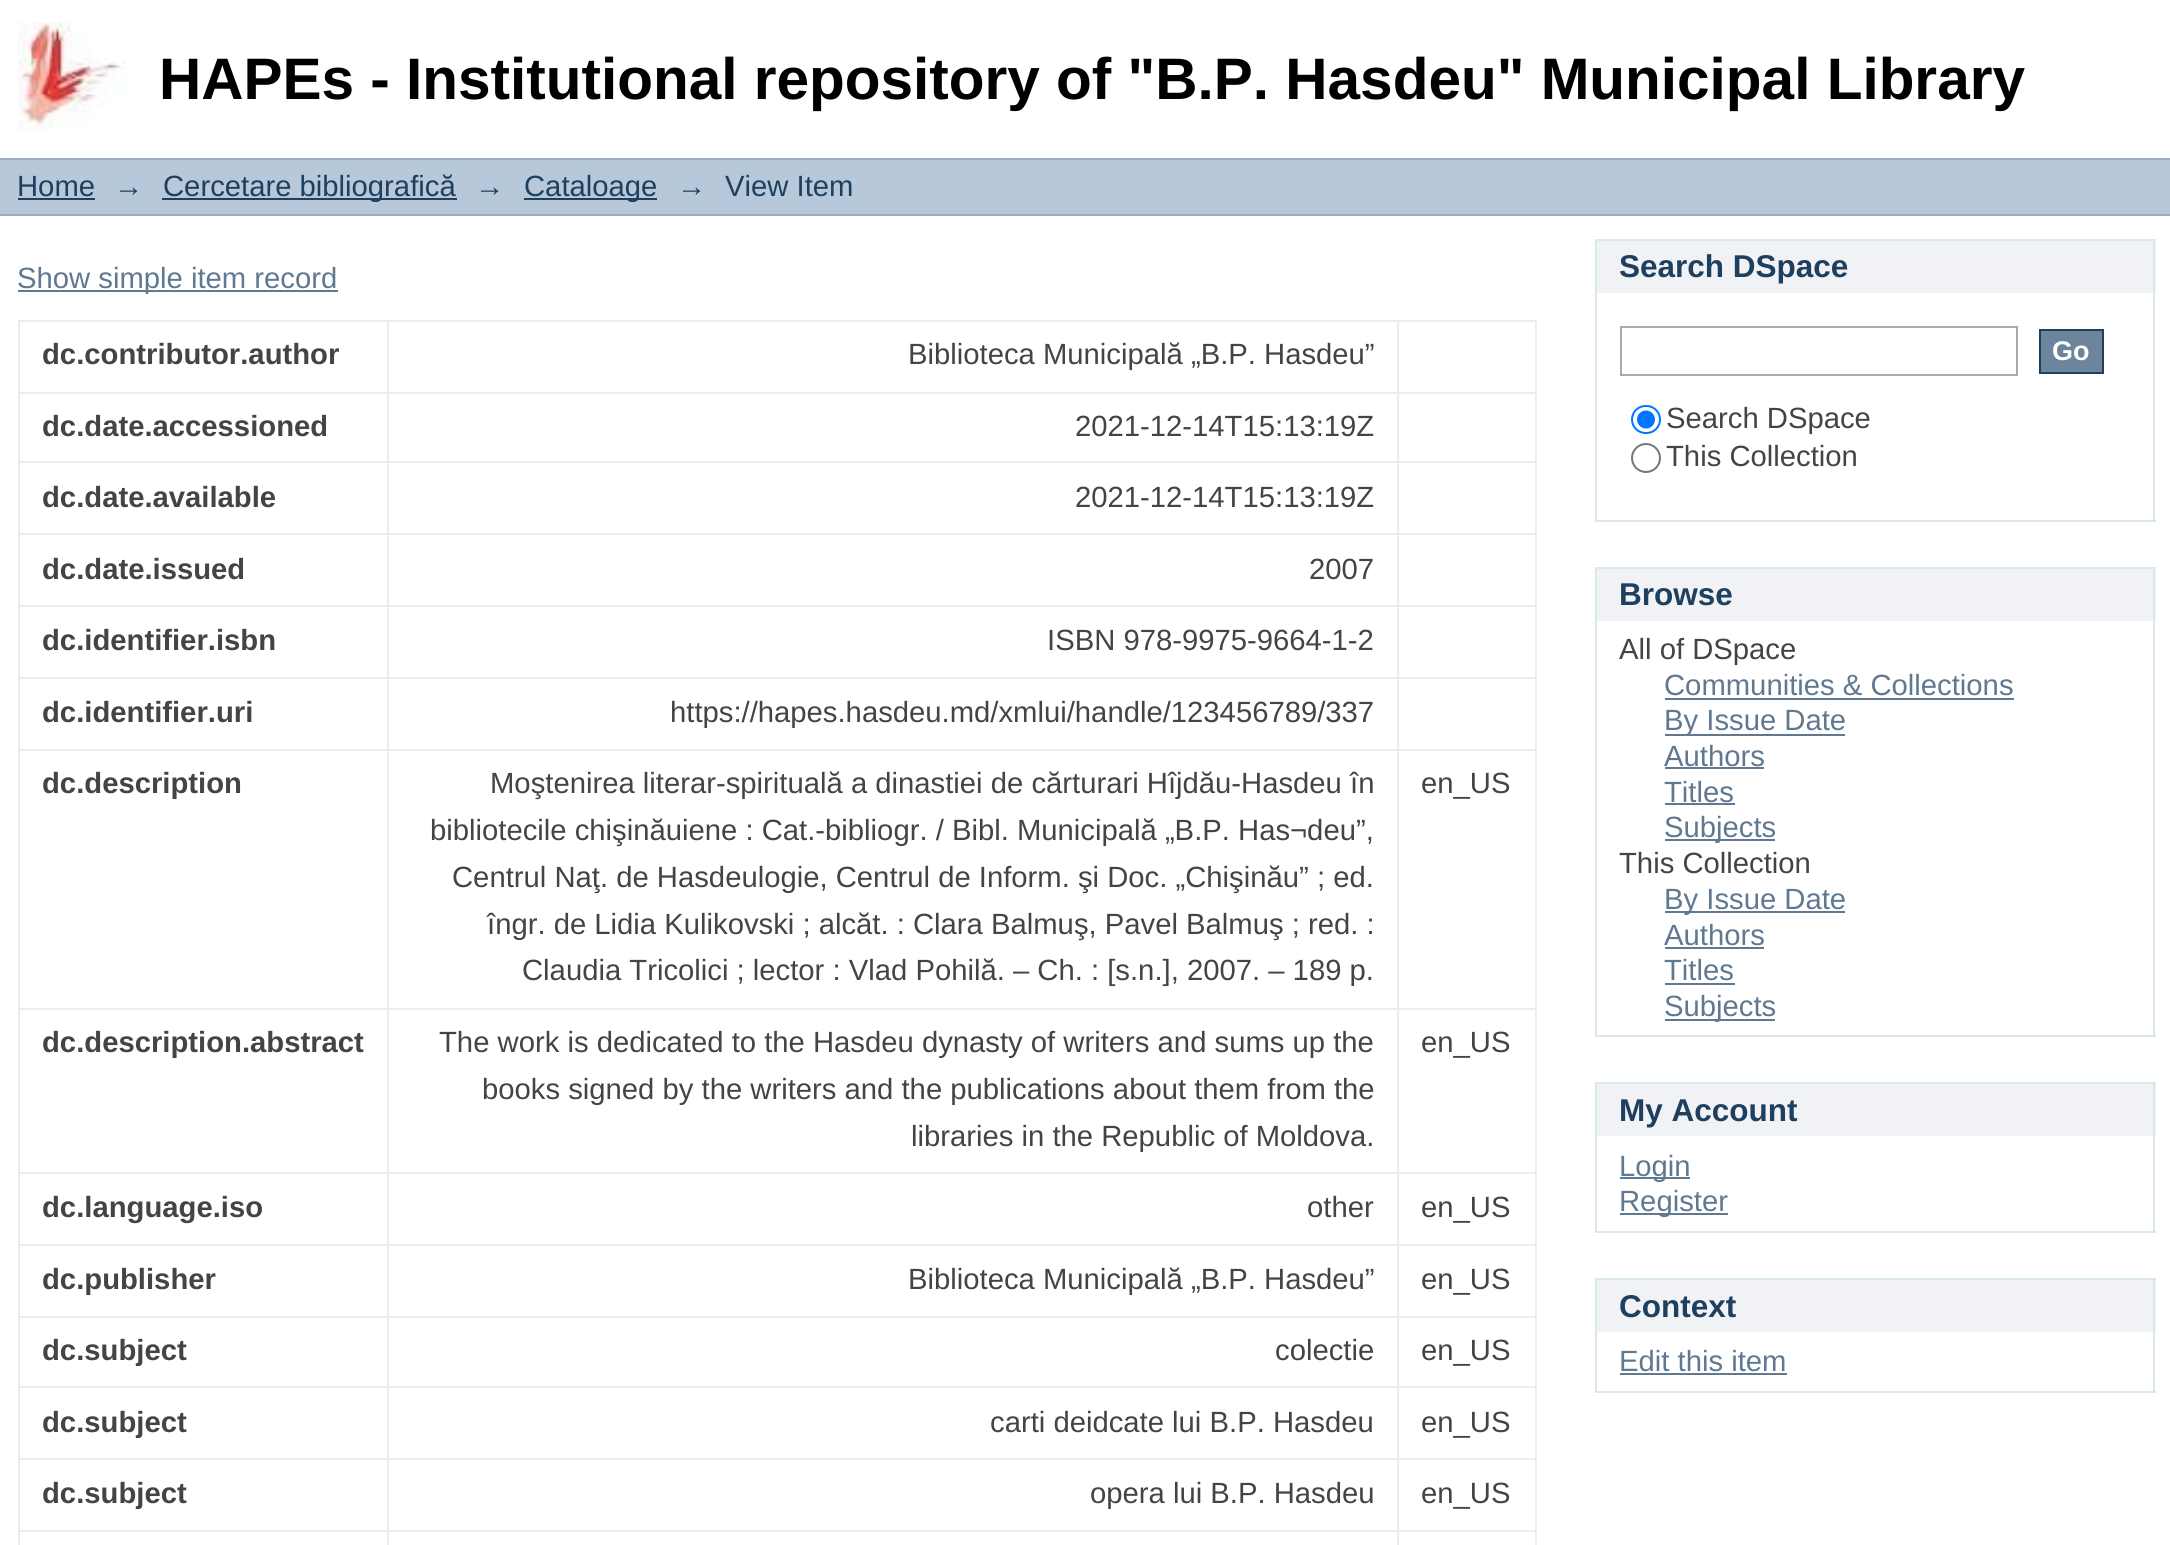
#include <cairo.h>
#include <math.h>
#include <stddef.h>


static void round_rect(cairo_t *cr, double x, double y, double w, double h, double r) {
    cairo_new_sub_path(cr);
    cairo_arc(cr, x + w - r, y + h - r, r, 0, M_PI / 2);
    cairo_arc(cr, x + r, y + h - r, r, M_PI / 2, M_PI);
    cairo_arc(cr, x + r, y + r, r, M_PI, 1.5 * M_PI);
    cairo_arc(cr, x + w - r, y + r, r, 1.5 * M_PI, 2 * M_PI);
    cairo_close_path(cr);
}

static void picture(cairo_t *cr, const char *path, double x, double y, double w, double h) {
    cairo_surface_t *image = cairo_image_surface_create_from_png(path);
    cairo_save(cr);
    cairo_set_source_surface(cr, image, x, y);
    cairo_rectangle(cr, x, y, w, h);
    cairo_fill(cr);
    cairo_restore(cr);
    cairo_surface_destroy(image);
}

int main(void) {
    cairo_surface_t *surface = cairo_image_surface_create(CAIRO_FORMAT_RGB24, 2170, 1545);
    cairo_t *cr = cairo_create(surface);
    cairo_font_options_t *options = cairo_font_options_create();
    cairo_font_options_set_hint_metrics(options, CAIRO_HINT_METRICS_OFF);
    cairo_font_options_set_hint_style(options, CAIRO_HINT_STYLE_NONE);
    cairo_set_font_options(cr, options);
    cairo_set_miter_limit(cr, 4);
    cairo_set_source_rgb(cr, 1, 1, 1);
    cairo_paint(cr);
    picture(cr, "img1.png", 18, 22, 108, 109);
    cairo_select_font_face(cr, "Liberation Sans", CAIRO_FONT_SLANT_NORMAL, CAIRO_FONT_WEIGHT_BOLD);
    cairo_set_font_size(cr, 58.5);
    cairo_set_source_rgb(cr, 0, 0, 0);
    cairo_move_to(cr, 159, 99);
    cairo_show_text(cr, "HAPEs - Institutional repository of \"B.P. Hasdeu\" Municipal Library");
    cairo_set_source_rgb(cr, 0.714, 0.784, 0.851);
    cairo_rectangle(cr, 0, 160, 2170, 54);
    cairo_fill(cr);
    cairo_set_source_rgb(cr, 0.612, 0.675, 0.729);
    cairo_rectangle(cr, 0, 158, 2170, 2);
    cairo_fill(cr);
    cairo_rectangle(cr, 0, 214, 2170, 2);
    cairo_fill(cr);
    cairo_select_font_face(cr, "Liberation Sans", CAIRO_FONT_SLANT_NORMAL, CAIRO_FONT_WEIGHT_NORMAL);
    cairo_set_font_size(cr, 29.25);
    cairo_set_source_rgb(cr, 0.122, 0.247, 0.369);
    cairo_move_to(cr, 17, 196);
    cairo_show_text(cr, "Home");
    cairo_rectangle(cr, 18, 198, 77, 2);
    cairo_fill(cr);
    cairo_move_to(cr, 114, 196);
    cairo_show_text(cr, "→");
    cairo_rectangle(cr, 162, 198, 295, 2);
    cairo_fill(cr);
    cairo_move_to(cr, 163, 196);
    cairo_show_text(cr, "Cercetare bibliografică");
    cairo_move_to(cr, 475, 196);
    cairo_show_text(cr, "→");
    cairo_rectangle(cr, 524, 198, 133, 2);
    cairo_fill(cr);
    cairo_move_to(cr, 524, 196);
    cairo_show_text(cr, "Cataloage");
    cairo_move_to(cr, 677, 196);
    cairo_show_text(cr, "→");
    cairo_move_to(cr, 725, 196);
    cairo_show_text(cr, "View Item");
    cairo_set_source_rgb(cr, 0.376, 0.471, 0.565);
    cairo_rectangle(cr, 18, 290, 320, 2);
    cairo_fill(cr);
    cairo_move_to(cr, 17, 288);
    cairo_show_text(cr, "Show simple item record");
    cairo_set_source_rgb(cr, 0.922, 0.922, 0.922);
    cairo_rectangle(cr, 18, 1530, 1519, 2);
    cairo_fill(cr);
    cairo_rectangle(cr, 1535, 1530, 2, 15);
    cairo_fill(cr);
    cairo_rectangle(cr, 18, 1530, 2, 15);
    cairo_fill(cr);
    cairo_rectangle(cr, 18, 320, 1519, 2);
    cairo_fill(cr);
    cairo_rectangle(cr, 18, 392, 1519, 2);
    cairo_fill(cr);
    cairo_rectangle(cr, 18, 461, 1519, 2);
    cairo_fill(cr);
    cairo_rectangle(cr, 18, 533, 1519, 2);
    cairo_fill(cr);
    cairo_rectangle(cr, 18, 605, 1519, 2);
    cairo_fill(cr);
    cairo_rectangle(cr, 18, 677, 1519, 2);
    cairo_fill(cr);
    cairo_rectangle(cr, 18, 749, 1519, 2);
    cairo_fill(cr);
    cairo_rectangle(cr, 18, 1008, 1519, 2);
    cairo_fill(cr);
    cairo_rectangle(cr, 18, 1172, 1519, 2);
    cairo_fill(cr);
    cairo_rectangle(cr, 18, 1244, 1519, 2);
    cairo_fill(cr);
    cairo_rectangle(cr, 18, 1316, 1519, 2);
    cairo_fill(cr);
    cairo_rectangle(cr, 18, 1386, 1519, 2);
    cairo_fill(cr);
    cairo_rectangle(cr, 18, 1458, 1519, 2);
    cairo_fill(cr);
    cairo_rectangle(cr, 387, 320, 2, 1225);
    cairo_fill(cr);
    cairo_rectangle(cr, 1397, 320, 2, 1225);
    cairo_fill(cr);
    cairo_rectangle(cr, 1535, 1458, 2, 74);
    cairo_fill(cr);
    cairo_rectangle(cr, 1535, 1386, 2, 74);
    cairo_fill(cr);
    cairo_rectangle(cr, 1535, 1316, 2, 72);
    cairo_fill(cr);
    cairo_rectangle(cr, 1535, 1244, 2, 75);
    cairo_fill(cr);
    cairo_rectangle(cr, 1535, 1172, 2, 75);
    cairo_fill(cr);
    cairo_rectangle(cr, 1535, 1008, 2, 167);
    cairo_fill(cr);
    cairo_rectangle(cr, 1535, 749, 2, 261);
    cairo_fill(cr);
    cairo_rectangle(cr, 1535, 677, 2, 75);
    cairo_fill(cr);
    cairo_rectangle(cr, 1535, 605, 2, 75);
    cairo_fill(cr);
    cairo_rectangle(cr, 1535, 533, 2, 75);
    cairo_fill(cr);
    cairo_rectangle(cr, 1535, 461, 2, 75);
    cairo_fill(cr);
    cairo_rectangle(cr, 1535, 392, 2, 72);
    cairo_fill(cr);
    cairo_rectangle(cr, 1535, 320, 2, 74);
    cairo_fill(cr);
    cairo_rectangle(cr, 18, 1458, 2, 74);
    cairo_fill(cr);
    cairo_rectangle(cr, 18, 1386, 2, 74);
    cairo_fill(cr);
    cairo_rectangle(cr, 18, 1316, 2, 72);
    cairo_fill(cr);
    cairo_rectangle(cr, 18, 1244, 2, 75);
    cairo_fill(cr);
    cairo_rectangle(cr, 18, 1172, 2, 75);
    cairo_fill(cr);
    cairo_rectangle(cr, 18, 1008, 2, 167);
    cairo_fill(cr);
    cairo_rectangle(cr, 18, 749, 2, 261);
    cairo_fill(cr);
    cairo_rectangle(cr, 18, 677, 2, 75);
    cairo_fill(cr);
    cairo_rectangle(cr, 18, 605, 2, 75);
    cairo_fill(cr);
    cairo_rectangle(cr, 18, 533, 2, 75);
    cairo_fill(cr);
    cairo_rectangle(cr, 18, 461, 2, 75);
    cairo_fill(cr);
    cairo_rectangle(cr, 18, 392, 2, 72);
    cairo_fill(cr);
    cairo_rectangle(cr, 18, 320, 2, 74);
    cairo_fill(cr);
    cairo_select_font_face(cr, "Liberation Sans", CAIRO_FONT_SLANT_NORMAL, CAIRO_FONT_WEIGHT_BOLD);
    cairo_set_source_rgb(cr, 0.267, 0.267, 0.267);
    cairo_move_to(cr, 42, 364);
    cairo_show_text(cr, "dc.contributor.author");
    cairo_select_font_face(cr, "Liberation Sans", CAIRO_FONT_SLANT_NORMAL, CAIRO_FONT_WEIGHT_NORMAL);
    cairo_move_to(cr, 908, 364);
    cairo_show_text(cr, "Biblioteca Municipală „B.P. Hasdeu”");
    cairo_select_font_face(cr, "Liberation Sans", CAIRO_FONT_SLANT_NORMAL, CAIRO_FONT_WEIGHT_BOLD);
    cairo_move_to(cr, 42, 436);
    cairo_show_text(cr, "dc.date.accessioned");
    cairo_select_font_face(cr, "Liberation Sans", CAIRO_FONT_SLANT_NORMAL, CAIRO_FONT_WEIGHT_NORMAL);
    cairo_move_to(cr, 1075, 436);
    cairo_show_text(cr, "2021-12-14T15:13:19Z");
    cairo_select_font_face(cr, "Liberation Sans", CAIRO_FONT_SLANT_NORMAL, CAIRO_FONT_WEIGHT_BOLD);
    cairo_move_to(cr, 42, 507);
    cairo_show_text(cr, "dc.date.available");
    cairo_select_font_face(cr, "Liberation Sans", CAIRO_FONT_SLANT_NORMAL, CAIRO_FONT_WEIGHT_NORMAL);
    cairo_move_to(cr, 1075, 507);
    cairo_show_text(cr, "2021-12-14T15:13:19Z");
    cairo_select_font_face(cr, "Liberation Sans", CAIRO_FONT_SLANT_NORMAL, CAIRO_FONT_WEIGHT_BOLD);
    cairo_move_to(cr, 42, 579);
    cairo_show_text(cr, "dc.date.issued");
    cairo_select_font_face(cr, "Liberation Sans", CAIRO_FONT_SLANT_NORMAL, CAIRO_FONT_WEIGHT_NORMAL);
    cairo_move_to(cr, 1309, 579);
    cairo_show_text(cr, "2007");
    cairo_select_font_face(cr, "Liberation Sans", CAIRO_FONT_SLANT_NORMAL, CAIRO_FONT_WEIGHT_BOLD);
    cairo_move_to(cr, 42, 650);
    cairo_show_text(cr, "dc.identifier.isbn");
    cairo_select_font_face(cr, "Liberation Sans", CAIRO_FONT_SLANT_NORMAL, CAIRO_FONT_WEIGHT_NORMAL);
    cairo_move_to(cr, 1047, 650);
    cairo_show_text(cr, "ISBN 978-9975-9664-1-2");
    cairo_select_font_face(cr, "Liberation Sans", CAIRO_FONT_SLANT_NORMAL, CAIRO_FONT_WEIGHT_BOLD);
    cairo_move_to(cr, 42, 722);
    cairo_show_text(cr, "dc.identifier.uri");
    cairo_select_font_face(cr, "Liberation Sans", CAIRO_FONT_SLANT_NORMAL, CAIRO_FONT_WEIGHT_NORMAL);
    cairo_move_to(cr, 670, 722);
    cairo_show_text(cr, "https://hapes.hasdeu.md/xmlui/handle/123456789/337");
    cairo_select_font_face(cr, "Liberation Sans", CAIRO_FONT_SLANT_NORMAL, CAIRO_FONT_WEIGHT_BOLD);
    cairo_move_to(cr, 42, 793);
    cairo_show_text(cr, "dc.description");
    cairo_select_font_face(cr, "Liberation Sans", CAIRO_FONT_SLANT_NORMAL, CAIRO_FONT_WEIGHT_NORMAL);
    cairo_move_to(cr, 490, 793);
    cairo_show_text(cr, "Moştenirea literar-spirituală a dinastiei de cărturari Hîjdău-Hasdeu în");
    cairo_move_to(cr, 430, 840);
    cairo_show_text(cr, "bibliotecile chişinăuiene : Cat.-bibliogr. / Bibl. Municipală „B.P. Has¬deu”,");
    cairo_move_to(cr, 452, 887);
    cairo_show_text(cr, "Centrul Naţ. de Hasdeulogie, Centrul de Inform. şi Doc. „Chişinău” ; ed.");
    cairo_move_to(cr, 487, 934);
    cairo_show_text(cr, "îngr. de Lidia Kulikovski ; alcăt. : Clara Balmuş, Pavel Balmuş ; red. :");
    cairo_move_to(cr, 522, 980);
    cairo_show_text(cr, "Claudia Tricolici ; lector : Vlad Pohilă. – Ch. : [s.n.], 2007. – 189 p.");
    cairo_move_to(cr, 1421, 793);
    cairo_show_text(cr, "en_US");
    cairo_select_font_face(cr, "Liberation Sans", CAIRO_FONT_SLANT_NORMAL, CAIRO_FONT_WEIGHT_BOLD);
    cairo_move_to(cr, 42, 1052);
    cairo_show_text(cr, "dc.description.abstract");
    cairo_select_font_face(cr, "Liberation Sans", CAIRO_FONT_SLANT_NORMAL, CAIRO_FONT_WEIGHT_NORMAL);
    cairo_move_to(cr, 439, 1052);
    cairo_show_text(cr, "The work is dedicated to the Hasdeu dynasty of writers and sums up the");
    cairo_move_to(cr, 482, 1099);
    cairo_show_text(cr, "books signed by the writers and the publications about them from the");
    cairo_move_to(cr, 911, 1146);
    cairo_show_text(cr, "libraries in the Republic of Moldova.");
    cairo_move_to(cr, 1421, 1052);
    cairo_show_text(cr, "en_US");
    cairo_select_font_face(cr, "Liberation Sans", CAIRO_FONT_SLANT_NORMAL, CAIRO_FONT_WEIGHT_BOLD);
    cairo_move_to(cr, 42, 1217);
    cairo_show_text(cr, "dc.language.iso");
    cairo_select_font_face(cr, "Liberation Sans", CAIRO_FONT_SLANT_NORMAL, CAIRO_FONT_WEIGHT_NORMAL);
    cairo_move_to(cr, 1307, 1217);
    cairo_show_text(cr, "other");
    cairo_move_to(cr, 1421, 1217);
    cairo_show_text(cr, "en_US");
    cairo_select_font_face(cr, "Liberation Sans", CAIRO_FONT_SLANT_NORMAL, CAIRO_FONT_WEIGHT_BOLD);
    cairo_move_to(cr, 42, 1289);
    cairo_show_text(cr, "dc.publisher");
    cairo_select_font_face(cr, "Liberation Sans", CAIRO_FONT_SLANT_NORMAL, CAIRO_FONT_WEIGHT_NORMAL);
    cairo_move_to(cr, 908, 1289);
    cairo_show_text(cr, "Biblioteca Municipală „B.P. Hasdeu”");
    cairo_move_to(cr, 1421, 1289);
    cairo_show_text(cr, "en_US");
    cairo_select_font_face(cr, "Liberation Sans", CAIRO_FONT_SLANT_NORMAL, CAIRO_FONT_WEIGHT_BOLD);
    cairo_move_to(cr, 42, 1360);
    cairo_show_text(cr, "dc.subject");
    cairo_select_font_face(cr, "Liberation Sans", CAIRO_FONT_SLANT_NORMAL, CAIRO_FONT_WEIGHT_NORMAL);
    cairo_move_to(cr, 1275, 1360);
    cairo_show_text(cr, "colectie");
    cairo_move_to(cr, 1421, 1360);
    cairo_show_text(cr, "en_US");
    cairo_select_font_face(cr, "Liberation Sans", CAIRO_FONT_SLANT_NORMAL, CAIRO_FONT_WEIGHT_BOLD);
    cairo_move_to(cr, 42, 1432);
    cairo_show_text(cr, "dc.subject");
    cairo_select_font_face(cr, "Liberation Sans", CAIRO_FONT_SLANT_NORMAL, CAIRO_FONT_WEIGHT_NORMAL);
    cairo_move_to(cr, 990, 1432);
    cairo_show_text(cr, "carti deidcate lui B.P. Hasdeu");
    cairo_move_to(cr, 1421, 1432);
    cairo_show_text(cr, "en_US");
    cairo_select_font_face(cr, "Liberation Sans", CAIRO_FONT_SLANT_NORMAL, CAIRO_FONT_WEIGHT_BOLD);
    cairo_move_to(cr, 42, 1503);
    cairo_show_text(cr, "dc.subject");
    cairo_select_font_face(cr, "Liberation Sans", CAIRO_FONT_SLANT_NORMAL, CAIRO_FONT_WEIGHT_NORMAL);
    cairo_move_to(cr, 1090, 1503);
    cairo_show_text(cr, "opera lui B.P. Hasdeu");
    cairo_move_to(cr, 1421, 1503);
    cairo_show_text(cr, "en_US");
    cairo_set_source_rgb(cr, 0.941, 0.949, 0.961);
    cairo_rectangle(cr, 1597, 241, 559, 52);
    cairo_fill(cr);
    cairo_set_source_rgb(cr, 0.847, 0.91, 0.922);
    cairo_rectangle(cr, 1595, 239, 561, 2);
    cairo_fill(cr);
    cairo_rectangle(cr, 2153, 239, 2, 283);
    cairo_fill(cr);
    cairo_rectangle(cr, 1595, 239, 2, 54);
    cairo_fill(cr);
    cairo_select_font_face(cr, "Liberation Sans", CAIRO_FONT_SLANT_NORMAL, CAIRO_FONT_WEIGHT_BOLD);
    cairo_set_font_size(cr, 31.5);
    cairo_set_source_rgb(cr, 0.122, 0.247, 0.369);
    cairo_move_to(cr, 1619, 277);
    cairo_show_text(cr, "Search DSpace");
    cairo_set_source_rgb(cr, 0.847, 0.91, 0.922);
    cairo_rectangle(cr, 1595, 520, 561, 2);
    cairo_fill(cr);
    cairo_rectangle(cr, 1595, 293, 2, 229);
    cairo_fill(cr);
    cairo_rectangle(cr, 1621, 327, 396, 48);
    cairo_set_source_rgb(cr, 0.667, 0.667, 0.667);
    cairo_stroke(cr);
    cairo_set_source_rgb(cr, 0.427, 0.522, 0.612);
    cairo_rectangle(cr, 2040, 330, 63, 43);
    cairo_fill_preserve(cr);
    cairo_set_source_rgb(cr, 0.122, 0.247, 0.369);
    cairo_stroke(cr);
    cairo_set_font_size(cr, 27);
    cairo_set_source_rgb(cr, 1, 1, 1);
    cairo_move_to(cr, 2052, 360);
    cairo_show_text(cr, "Go");
    round_rect(cr, 1632, 406, 28, 27, 13.5);
    cairo_set_source_rgb(cr, 0, 0.459, 1);
    cairo_stroke(cr);
    cairo_arc(cr, 1646, 419.5, 9, 0, 2 * M_PI);
    cairo_fill(cr);
    cairo_select_font_face(cr, "Liberation Sans", CAIRO_FONT_SLANT_NORMAL, CAIRO_FONT_WEIGHT_NORMAL);
    cairo_set_font_size(cr, 29.25);
    cairo_set_source_rgb(cr, 0.267, 0.267, 0.267);
    cairo_move_to(cr, 1666, 428);
    cairo_show_text(cr, "Search DSpace");
    cairo_new_path(cr);
    cairo_arc(cr, 1646, 458, 14, 0, 2 * M_PI);
    cairo_set_source_rgb(cr, 0.463, 0.463, 0.463);
    cairo_stroke(cr);
    cairo_set_source_rgb(cr, 0.267, 0.267, 0.267);
    cairo_move_to(cr, 1666, 466);
    cairo_show_text(cr, "This Collection");
    cairo_set_source_rgb(cr, 0.941, 0.949, 0.961);
    cairo_rectangle(cr, 1597, 569, 559, 52);
    cairo_fill(cr);
    cairo_set_source_rgb(cr, 0.847, 0.91, 0.922);
    cairo_rectangle(cr, 1595, 567, 561, 2);
    cairo_fill(cr);
    cairo_rectangle(cr, 2153, 567, 2, 470);
    cairo_fill(cr);
    cairo_rectangle(cr, 1595, 567, 2, 54);
    cairo_fill(cr);
    cairo_select_font_face(cr, "Liberation Sans", CAIRO_FONT_SLANT_NORMAL, CAIRO_FONT_WEIGHT_BOLD);
    cairo_set_font_size(cr, 31.5);
    cairo_set_source_rgb(cr, 0.122, 0.247, 0.369);
    cairo_move_to(cr, 1619, 605);
    cairo_show_text(cr, "Browse");
    cairo_set_source_rgb(cr, 0.847, 0.91, 0.922);
    cairo_rectangle(cr, 1595, 1035, 561, 2);
    cairo_fill(cr);
    cairo_rectangle(cr, 1595, 621, 2, 416);
    cairo_fill(cr);
    cairo_select_font_face(cr, "Liberation Sans", CAIRO_FONT_SLANT_NORMAL, CAIRO_FONT_WEIGHT_NORMAL);
    cairo_set_font_size(cr, 29.25);
    cairo_set_source_rgb(cr, 0.267, 0.267, 0.267);
    cairo_move_to(cr, 1619, 659);
    cairo_show_text(cr, "All of DSpace");
    cairo_set_source_rgb(cr, 0.376, 0.471, 0.565);
    cairo_move_to(cr, 1664, 695);
    cairo_show_text(cr, "Communities & Collections");
    cairo_rectangle(cr, 1665, 698, 349, 2);
    cairo_fill(cr);
    cairo_rectangle(cr, 1665, 734, 180, 2);
    cairo_fill(cr);
    cairo_move_to(cr, 1664, 730);
    cairo_show_text(cr, "By Issue Date");
    cairo_move_to(cr, 1664, 766);
    cairo_show_text(cr, "Authors");
    cairo_rectangle(cr, 1665, 767, 99, 2);
    cairo_fill(cr);
    cairo_move_to(cr, 1664, 802);
    cairo_show_text(cr, "Titles");
    cairo_rectangle(cr, 1665, 803, 70, 2);
    cairo_fill(cr);
    cairo_rectangle(cr, 1665, 839, 110, 2);
    cairo_fill(cr);
    cairo_move_to(cr, 1664, 837);
    cairo_show_text(cr, "Subjects");
    cairo_set_source_rgb(cr, 0.267, 0.267, 0.267);
    cairo_move_to(cr, 1619, 873);
    cairo_show_text(cr, "This Collection");
    cairo_set_source_rgb(cr, 0.376, 0.471, 0.565);
    cairo_rectangle(cr, 1665, 911, 180, 2);
    cairo_fill(cr);
    cairo_move_to(cr, 1664, 909);
    cairo_show_text(cr, "By Issue Date");
    cairo_move_to(cr, 1664, 945);
    cairo_show_text(cr, "Authors");
    cairo_rectangle(cr, 1665, 947, 99, 2);
    cairo_fill(cr);
    cairo_move_to(cr, 1664, 980);
    cairo_show_text(cr, "Titles");
    cairo_rectangle(cr, 1665, 983, 70, 2);
    cairo_fill(cr);
    cairo_rectangle(cr, 1665, 1019, 110, 2);
    cairo_fill(cr);
    cairo_move_to(cr, 1664, 1016);
    cairo_show_text(cr, "Subjects");
    cairo_set_source_rgb(cr, 0.941, 0.949, 0.961);
    cairo_rectangle(cr, 1597, 1084, 559, 52);
    cairo_fill(cr);
    cairo_set_source_rgb(cr, 0.847, 0.91, 0.922);
    cairo_rectangle(cr, 1595, 1082, 561, 2);
    cairo_fill(cr);
    cairo_rectangle(cr, 2153, 1082, 2, 151);
    cairo_fill(cr);
    cairo_rectangle(cr, 1595, 1082, 2, 54);
    cairo_fill(cr);
    cairo_select_font_face(cr, "Liberation Sans", CAIRO_FONT_SLANT_NORMAL, CAIRO_FONT_WEIGHT_BOLD);
    cairo_set_font_size(cr, 31.5);
    cairo_set_source_rgb(cr, 0.122, 0.247, 0.369);
    cairo_move_to(cr, 1619, 1121);
    cairo_show_text(cr, "My Account");
    cairo_set_source_rgb(cr, 0.847, 0.91, 0.922);
    cairo_rectangle(cr, 1595, 1231, 561, 2);
    cairo_fill(cr);
    cairo_rectangle(cr, 1595, 1136, 2, 97);
    cairo_fill(cr);
    cairo_set_source_rgb(cr, 0.376, 0.471, 0.565);
    cairo_rectangle(cr, 1620, 1177, 70, 2);
    cairo_fill(cr);
    cairo_select_font_face(cr, "Liberation Sans", CAIRO_FONT_SLANT_NORMAL, CAIRO_FONT_WEIGHT_NORMAL);
    cairo_set_font_size(cr, 29.25);
    cairo_move_to(cr, 1619, 1176);
    cairo_show_text(cr, "Login");
    cairo_rectangle(cr, 1620, 1213, 108, 2);
    cairo_fill(cr);
    cairo_move_to(cr, 1619, 1211);
    cairo_show_text(cr, "Register");
    cairo_set_source_rgb(cr, 0.941, 0.949, 0.961);
    cairo_rectangle(cr, 1597, 1280, 559, 52);
    cairo_fill(cr);
    cairo_set_source_rgb(cr, 0.847, 0.91, 0.922);
    cairo_rectangle(cr, 1595, 1278, 561, 2);
    cairo_fill(cr);
    cairo_rectangle(cr, 2153, 1278, 2, 115);
    cairo_fill(cr);
    cairo_rectangle(cr, 1595, 1278, 2, 54);
    cairo_fill(cr);
    cairo_select_font_face(cr, "Liberation Sans", CAIRO_FONT_SLANT_NORMAL, CAIRO_FONT_WEIGHT_BOLD);
    cairo_set_font_size(cr, 31.5);
    cairo_set_source_rgb(cr, 0.122, 0.247, 0.369);
    cairo_move_to(cr, 1619, 1317);
    cairo_show_text(cr, "Context");
    cairo_set_source_rgb(cr, 0.847, 0.91, 0.922);
    cairo_rectangle(cr, 1595, 1391, 561, 2);
    cairo_fill(cr);
    cairo_rectangle(cr, 1595, 1332, 2, 61);
    cairo_fill(cr);
    cairo_select_font_face(cr, "Liberation Sans", CAIRO_FONT_SLANT_NORMAL, CAIRO_FONT_WEIGHT_NORMAL);
    cairo_set_font_size(cr, 29.25);
    cairo_set_source_rgb(cr, 0.376, 0.471, 0.565);
    cairo_move_to(cr, 1619, 1371);
    cairo_show_text(cr, "Edit this item");
    cairo_rectangle(cr, 1620, 1373, 167, 2);
    cairo_fill(cr);
    cairo_surface_write_to_png(surface, "page.png");
    cairo_font_options_destroy(options);
    cairo_destroy(cr);
    cairo_surface_destroy(surface);
    return 0;
}
